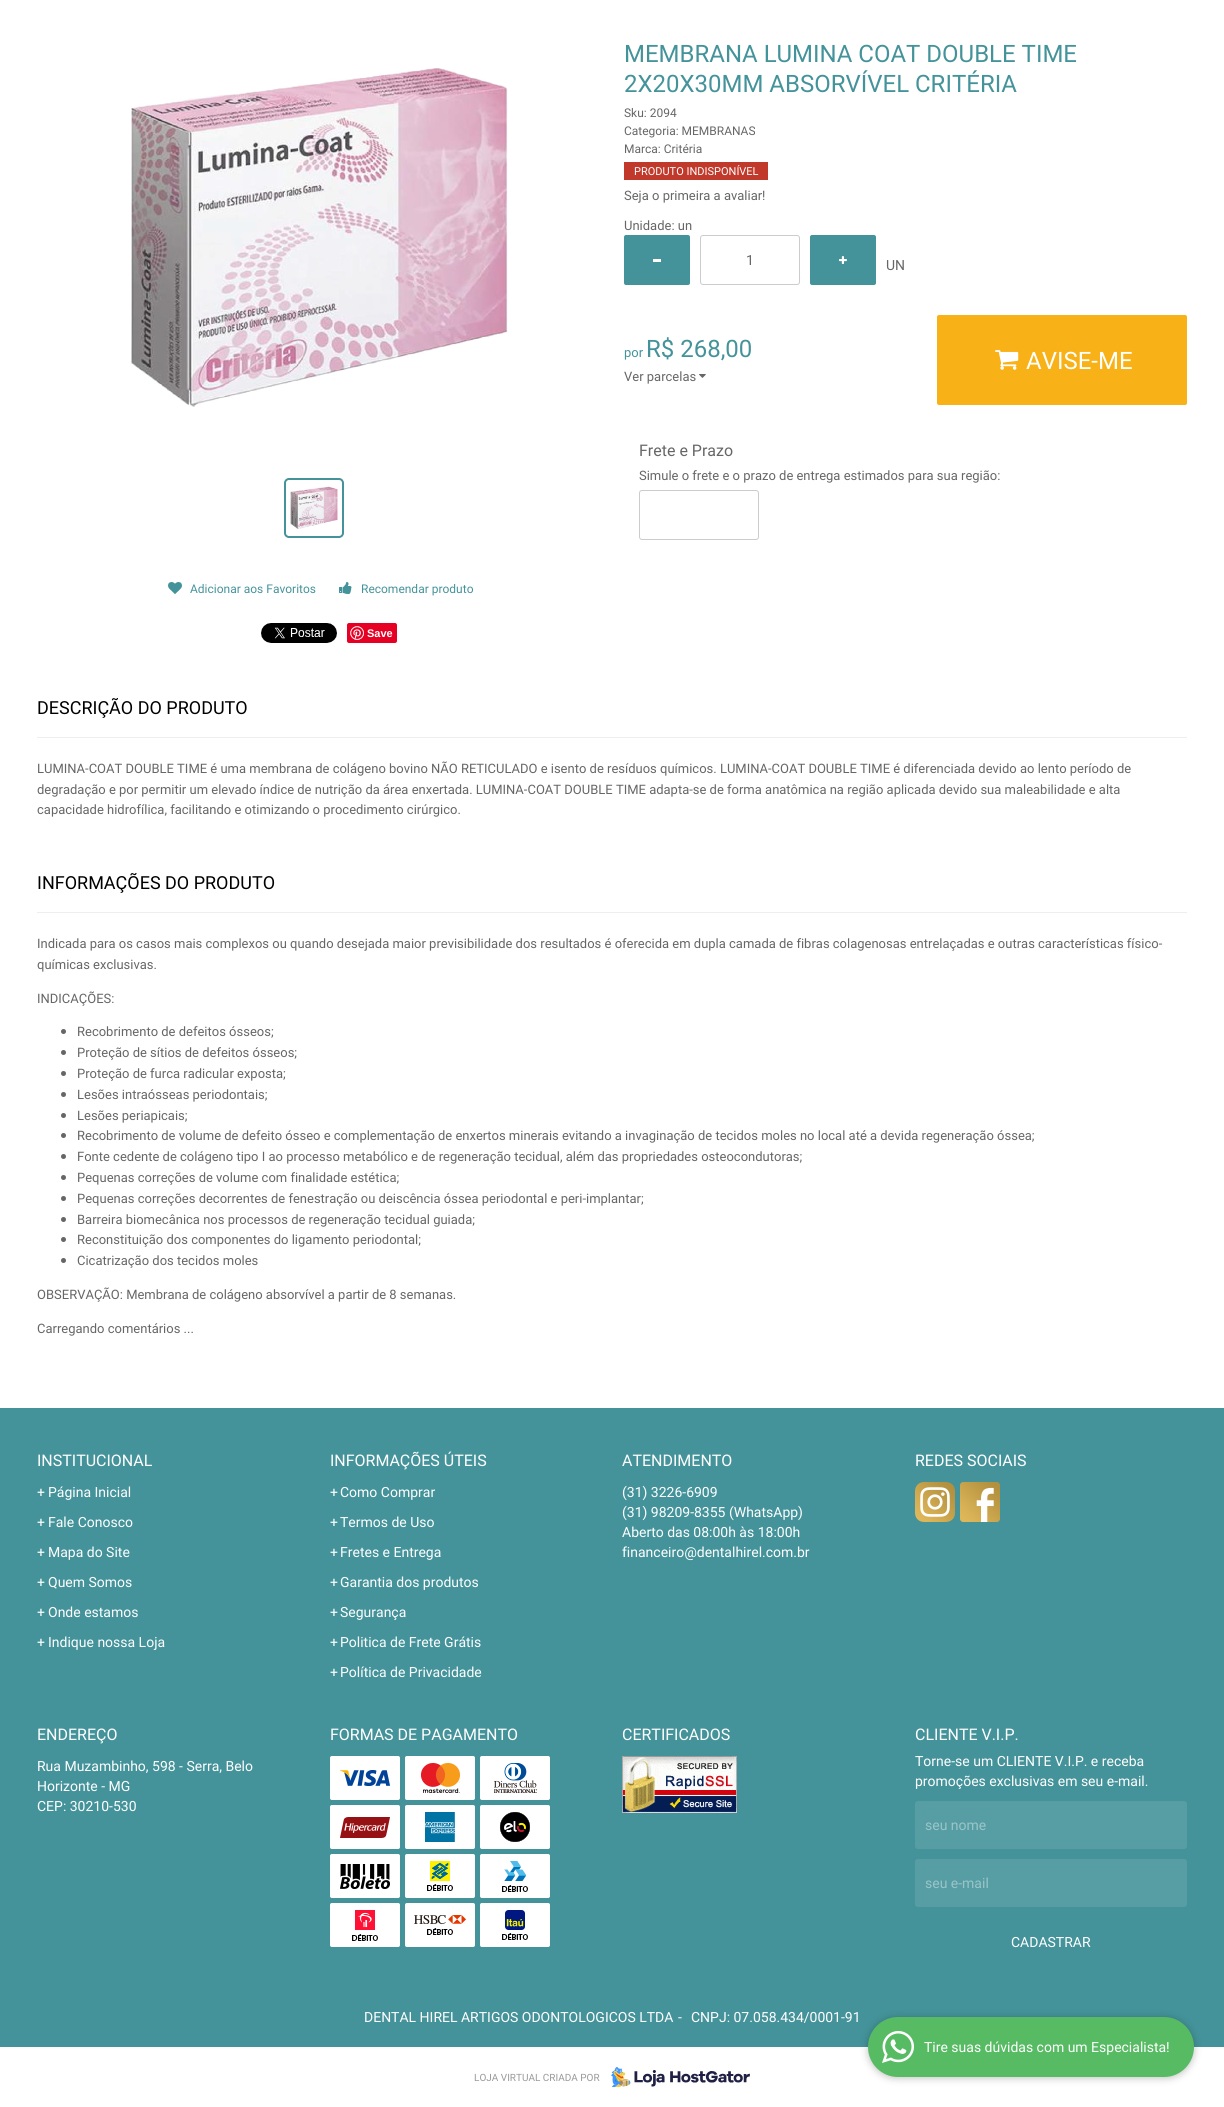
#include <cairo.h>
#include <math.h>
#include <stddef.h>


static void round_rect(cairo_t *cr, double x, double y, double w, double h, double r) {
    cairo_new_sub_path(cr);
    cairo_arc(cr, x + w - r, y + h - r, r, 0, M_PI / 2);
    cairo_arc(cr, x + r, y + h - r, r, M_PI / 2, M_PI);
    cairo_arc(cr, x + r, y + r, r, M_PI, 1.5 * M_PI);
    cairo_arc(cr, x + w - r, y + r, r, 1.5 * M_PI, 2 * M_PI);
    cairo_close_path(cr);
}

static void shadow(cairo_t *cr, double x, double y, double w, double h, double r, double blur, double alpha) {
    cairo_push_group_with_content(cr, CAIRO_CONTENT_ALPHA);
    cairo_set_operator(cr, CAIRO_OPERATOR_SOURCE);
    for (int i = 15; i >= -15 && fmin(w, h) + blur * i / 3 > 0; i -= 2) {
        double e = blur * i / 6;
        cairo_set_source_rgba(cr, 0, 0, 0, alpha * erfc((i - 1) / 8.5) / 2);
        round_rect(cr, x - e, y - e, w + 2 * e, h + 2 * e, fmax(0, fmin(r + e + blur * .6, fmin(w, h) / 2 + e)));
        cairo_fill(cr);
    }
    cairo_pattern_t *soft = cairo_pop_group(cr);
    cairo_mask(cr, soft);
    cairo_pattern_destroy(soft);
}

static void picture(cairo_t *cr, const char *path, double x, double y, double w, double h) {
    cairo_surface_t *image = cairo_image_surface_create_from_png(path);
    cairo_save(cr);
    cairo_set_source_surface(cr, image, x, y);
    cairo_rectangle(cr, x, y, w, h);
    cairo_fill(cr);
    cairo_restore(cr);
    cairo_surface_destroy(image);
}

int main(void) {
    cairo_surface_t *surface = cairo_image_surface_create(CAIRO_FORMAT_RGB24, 1224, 2107);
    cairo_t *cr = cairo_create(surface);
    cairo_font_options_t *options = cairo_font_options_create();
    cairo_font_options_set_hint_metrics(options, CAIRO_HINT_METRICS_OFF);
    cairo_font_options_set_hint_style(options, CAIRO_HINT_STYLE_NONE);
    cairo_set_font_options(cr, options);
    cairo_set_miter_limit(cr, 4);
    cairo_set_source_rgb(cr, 1, 1, 1);
    cairo_paint(cr);
    cairo_select_font_face(cr, "Roboto", CAIRO_FONT_SLANT_NORMAL, CAIRO_FONT_WEIGHT_NORMAL);
    cairo_set_font_size(cr, 24);
    cairo_set_source_rgb(cr, 0.267, 0.576, 0.604);
    cairo_move_to(cr, 624, 62);
    cairo_show_text(cr, "MEMBRANA LUMINA COAT DOUBLE TIME");
    cairo_move_to(cr, 624, 92);
    cairo_show_text(cr, "2X20X30MM ABSORVÍVEL CRITÉRIA");
    cairo_set_font_size(cr, 12);
    cairo_set_source_rgb(cr, 0.4, 0.4, 0.4);
    cairo_move_to(cr, 624, 117);
    cairo_show_text(cr, "Sku: 2094");
    cairo_move_to(cr, 624, 135);
    cairo_show_text(cr, "Categoria: MEMBRANAS");
    cairo_move_to(cr, 624, 153);
    cairo_show_text(cr, "Marca: Critéria");
    cairo_set_source_rgb(cr, 0.753, 0.224, 0.169);
    cairo_rectangle(cr, 624, 162, 144, 18);
    cairo_fill(cr);
    cairo_set_font_size(cr, 11);
    cairo_set_source_rgb(cr, 1, 1, 1);
    cairo_move_to(cr, 634, 175);
    cairo_show_text(cr, "PRODUTO INDISPONÍVEL");
    cairo_set_font_size(cr, 13);
    cairo_set_source_rgb(cr, 0.4, 0.4, 0.4);
    cairo_move_to(cr, 624, 200);
    cairo_show_text(cr, "Seja o primeira a avaliar!");
    cairo_move_to(cr, 624, 230);
    cairo_show_text(cr, "Unidade: un");
    cairo_set_source_rgb(cr, 0.267, 0.576, 0.604);
    round_rect(cr, 624, 235, 66, 50, 2);
    cairo_fill(cr);
    cairo_set_source_rgb(cr, 1, 1, 1);
    cairo_rectangle(cr, 653, 259, 8, 3);
    cairo_fill(cr);
    round_rect(cr, 700.5, 235.5, 99, 49, 2.5);
    cairo_set_source_rgb(cr, 0.8, 0.8, 0.8);
    cairo_set_line_width(cr, 1);
    cairo_stroke(cr);
    cairo_set_font_size(cr, 14);
    cairo_set_source_rgb(cr, 0.4, 0.4, 0.4);
    cairo_move_to(cr, 746, 265);
    cairo_show_text(cr, "1");
    cairo_set_source_rgb(cr, 0.267, 0.576, 0.604);
    round_rect(cr, 810, 235, 66, 50, 2);
    cairo_fill(cr);
    picture(cr, "img1.png", 839, 256, 8, 8);
    cairo_set_source_rgb(cr, 0.4, 0.4, 0.4);
    cairo_move_to(cr, 886, 270);
    cairo_show_text(cr, "UN");
    cairo_set_font_size(cr, 13);
    cairo_set_source_rgb(cr, 0.267, 0.576, 0.604);
    cairo_move_to(cr, 624, 357);
    cairo_show_text(cr, "por");
    cairo_set_font_size(cr, 24);
    cairo_move_to(cr, 646, 357);
    cairo_show_text(cr, "R$ 268,00");
    cairo_set_font_size(cr, 13);
    cairo_set_source_rgb(cr, 0.4, 0.4, 0.4);
    cairo_move_to(cr, 624, 381);
    cairo_show_text(cr, "Ver parcelas");
    picture(cr, "img2.png", 699, 374, 7, 4);
    cairo_set_source_rgb(cr, 0.969, 0.694, 0.09);
    round_rect(cr, 937, 315, 250, 90, 2);
    cairo_fill(cr);
    picture(cr, "img3.png", 995, 350, 24, 20);
    cairo_set_font_size(cr, 24);
    cairo_set_source_rgb(cr, 1, 1, 1);
    cairo_move_to(cr, 1026, 369);
    cairo_show_text(cr, "AVISE-ME");
    cairo_set_font_size(cr, 16);
    cairo_set_source_rgb(cr, 0.4, 0.4, 0.4);
    cairo_move_to(cr, 639, 456);
    cairo_show_text(cr, "Frete e Prazo");
    cairo_set_font_size(cr, 13);
    cairo_move_to(cr, 639, 480);
    cairo_show_text(cr, "Simule o frete e o prazo de entrega estimados para sua região:");
    round_rect(cr, 639.5, 490.5, 119, 49, 2.5);
    cairo_set_source_rgb(cr, 0.8, 0.8, 0.8);
    cairo_stroke(cr);
    picture(cr, "img4.png", 131, 68, 377, 339);
    round_rect(cr, 285, 479, 58, 58, 4);
    cairo_set_source_rgb(cr, 0.267, 0.576, 0.604);
    cairo_set_line_width(cr, 2);
    cairo_stroke(cr);
    picture(cr, "img5.png", 290, 486, 48, 43);
    picture(cr, "img6.png", 168, 582, 14, 12);
    cairo_set_font_size(cr, 12);
    cairo_move_to(cr, 190, 593);
    cairo_show_text(cr, "Adicionar aos Favoritos");
    picture(cr, "img7.png", 339, 582, 13, 12);
    cairo_move_to(cr, 361, 593);
    cairo_show_text(cr, "Recomendar produto");
    picture(cr, "img8.png", 261, 623, 76, 20);
    cairo_set_source_rgb(cr, 0.902, 0, 0.137);
    round_rect(cr, 347, 623, 50, 20, 2);
    cairo_fill(cr);
    picture(cr, "img9.png", 350, 626, 14, 14);
    cairo_select_font_face(cr, "Liberation Sans", CAIRO_FONT_SLANT_NORMAL, CAIRO_FONT_WEIGHT_BOLD);
    cairo_set_font_size(cr, 11);
    cairo_set_source_rgb(cr, 1, 1, 1);
    cairo_move_to(cr, 367, 637);
    cairo_show_text(cr, "Save");
    cairo_set_source_rgb(cr, 0.933, 0.933, 0.933);
    cairo_rectangle(cr, 37, 737, 1150, 1);
    cairo_fill(cr);
    cairo_select_font_face(cr, "Roboto", CAIRO_FONT_SLANT_NORMAL, CAIRO_FONT_WEIGHT_NORMAL);
    cairo_set_font_size(cr, 18);
    cairo_set_source_rgb(cr, 0, 0, 0);
    cairo_move_to(cr, 37, 714);
    cairo_show_text(cr, "DESCRIÇÃO DO PRODUTO");
    cairo_set_font_size(cr, 13);
    cairo_set_source_rgb(cr, 0.4, 0.4, 0.4);
    cairo_move_to(cr, 37, 773);
    cairo_show_text(cr, "LUMINA-COAT DOUBLE TIME é uma membrana de colágeno bovino NÃO RETICULADO e isento de resíduos químicos. LUMINA-COAT DOUBLE TIME é diferenciada devido ao lento período de");
    cairo_move_to(cr, 37, 794);
    cairo_show_text(cr, "degradação e por permitir um elevado índice de nutrição da área enxertada. LUMINA-COAT DOUBLE TIME adapta-se de forma anatômica na região aplicada devido sua maleabilidade e alta");
    cairo_move_to(cr, 37, 814);
    cairo_show_text(cr, "capacidade hidrofílica, facilitando e otimizando o procedimento cirúrgico.");
    cairo_set_source_rgb(cr, 0.933, 0.933, 0.933);
    cairo_rectangle(cr, 37, 912, 1150, 1);
    cairo_fill(cr);
    cairo_set_font_size(cr, 18);
    cairo_set_source_rgb(cr, 0, 0, 0);
    cairo_move_to(cr, 37, 889);
    cairo_show_text(cr, "INFORMAÇÕES DO PRODUTO");
    cairo_set_font_size(cr, 13);
    cairo_set_source_rgb(cr, 0.4, 0.4, 0.4);
    cairo_move_to(cr, 37, 948);
    cairo_show_text(cr, "Indicada para os casos mais complexos ou quando desejada maior previsibilidade dos resultados é oferecida em dupla camada de fibras colagenosas entrelaçadas e outras características físico-");
    cairo_move_to(cr, 37, 969);
    cairo_show_text(cr, "químicas exclusivas.");
    cairo_move_to(cr, 37, 1003);
    cairo_show_text(cr, "INDICAÇÕES:");
    cairo_new_path(cr);
    cairo_arc(cr, 63.5, 1031.5, 2.5, 0, 2 * M_PI);
    cairo_fill(cr);
    cairo_move_to(cr, 77, 1036);
    cairo_show_text(cr, "Recobrimento de defeitos ósseos;");
    cairo_new_path(cr);
    cairo_arc(cr, 63.5, 1052.5, 2.5, 0, 2 * M_PI);
    cairo_fill(cr);
    cairo_move_to(cr, 77, 1057);
    cairo_show_text(cr, "Proteção de sítios de defeitos ósseos;");
    cairo_new_path(cr);
    cairo_arc(cr, 63.5, 1073.5, 2.5, 0, 2 * M_PI);
    cairo_fill(cr);
    cairo_move_to(cr, 77, 1078);
    cairo_show_text(cr, "Proteção de furca radicular exposta;");
    cairo_new_path(cr);
    cairo_arc(cr, 63.5, 1094.5, 2.5, 0, 2 * M_PI);
    cairo_fill(cr);
    cairo_move_to(cr, 77, 1099);
    cairo_show_text(cr, "Lesões intraósseas periodontais;");
    cairo_new_path(cr);
    cairo_arc(cr, 63.5, 1115.5, 2.5, 0, 2 * M_PI);
    cairo_fill(cr);
    cairo_move_to(cr, 77, 1120);
    cairo_show_text(cr, "Lesões periapicais;");
    cairo_new_path(cr);
    cairo_arc(cr, 63.5, 1135.5, 2.5, 0, 2 * M_PI);
    cairo_fill(cr);
    cairo_move_to(cr, 77, 1140);
    cairo_show_text(cr, "Recobrimento de volume de defeito ósseo e complementação de enxertos minerais evitando a invaginação de tecidos moles no local até a devida regeneração óssea;");
    cairo_new_path(cr);
    cairo_arc(cr, 63.5, 1156.5, 2.5, 0, 2 * M_PI);
    cairo_fill(cr);
    cairo_move_to(cr, 77, 1161);
    cairo_show_text(cr, "Fonte cedente de colágeno tipo I ao processo metabólico e de regeneração tecidual, além das propriedades osteocondutoras;");
    cairo_new_path(cr);
    cairo_arc(cr, 63.5, 1177.5, 2.5, 0, 2 * M_PI);
    cairo_fill(cr);
    cairo_move_to(cr, 77, 1182);
    cairo_show_text(cr, "Pequenas correções de volume com finalidade estética;");
    cairo_new_path(cr);
    cairo_arc(cr, 63.5, 1198.5, 2.5, 0, 2 * M_PI);
    cairo_fill(cr);
    cairo_move_to(cr, 77, 1203);
    cairo_show_text(cr, "Pequenas correções decorrentes de fenestração ou deiscência óssea periodontal e peri-implantar;");
    cairo_new_path(cr);
    cairo_arc(cr, 63.5, 1219.5, 2.5, 0, 2 * M_PI);
    cairo_fill(cr);
    cairo_move_to(cr, 77, 1224);
    cairo_show_text(cr, "Barreira biomecânica nos processos de regeneração tecidual guiada;");
    cairo_new_path(cr);
    cairo_arc(cr, 63.5, 1239.5, 2.5, 0, 2 * M_PI);
    cairo_fill(cr);
    cairo_move_to(cr, 77, 1244);
    cairo_show_text(cr, "Reconstituição dos componentes do ligamento periodontal;");
    cairo_new_path(cr);
    cairo_arc(cr, 63.5, 1260.5, 2.5, 0, 2 * M_PI);
    cairo_fill(cr);
    cairo_move_to(cr, 77, 1265);
    cairo_show_text(cr, "Cicatrização dos tecidos moles");
    cairo_move_to(cr, 37, 1299);
    cairo_show_text(cr, "OBSERVAÇÃO: Membrana de colágeno absorvível a partir de 8 semanas.");
    cairo_move_to(cr, 37, 1333);
    cairo_show_text(cr, "Carregando comentários ...");
    cairo_set_source_rgb(cr, 0.267, 0.576, 0.604);
    cairo_rectangle(cr, 0, 1408, 1224, 639);
    cairo_fill(cr);
    cairo_set_font_size(cr, 16);
    cairo_set_source_rgb(cr, 1, 1, 1);
    cairo_move_to(cr, 37, 1466);
    cairo_show_text(cr, "INSTITUCIONAL");
    cairo_set_font_size(cr, 14);
    cairo_move_to(cr, 37, 1497);
    cairo_show_text(cr, "+");
    cairo_move_to(cr, 48, 1497);
    cairo_show_text(cr, "Página Inicial");
    cairo_move_to(cr, 37, 1527);
    cairo_show_text(cr, "+");
    cairo_move_to(cr, 48, 1527);
    cairo_show_text(cr, "Fale Conosco");
    cairo_move_to(cr, 37, 1557);
    cairo_show_text(cr, "+");
    cairo_move_to(cr, 48, 1557);
    cairo_show_text(cr, "Mapa do Site");
    cairo_move_to(cr, 37, 1587);
    cairo_show_text(cr, "+");
    cairo_move_to(cr, 48, 1587);
    cairo_show_text(cr, "Quem Somos");
    cairo_move_to(cr, 37, 1617);
    cairo_show_text(cr, "+");
    cairo_move_to(cr, 48, 1617);
    cairo_show_text(cr, "Onde estamos");
    cairo_move_to(cr, 37, 1647);
    cairo_show_text(cr, "+");
    cairo_move_to(cr, 48, 1647);
    cairo_show_text(cr, "Indique nossa Loja");
    cairo_set_font_size(cr, 16);
    cairo_move_to(cr, 330, 1466);
    cairo_show_text(cr, "INFORMAÇÕES ÚTEIS");
    cairo_set_font_size(cr, 14);
    cairo_move_to(cr, 330, 1497);
    cairo_show_text(cr, "+");
    cairo_move_to(cr, 340, 1497);
    cairo_show_text(cr, "Como Comprar");
    cairo_move_to(cr, 330, 1527);
    cairo_show_text(cr, "+");
    cairo_move_to(cr, 340, 1527);
    cairo_show_text(cr, "Termos de Uso");
    cairo_move_to(cr, 330, 1557);
    cairo_show_text(cr, "+");
    cairo_move_to(cr, 340, 1557);
    cairo_show_text(cr, "Fretes e Entrega");
    cairo_move_to(cr, 330, 1587);
    cairo_show_text(cr, "+");
    cairo_move_to(cr, 340, 1587);
    cairo_show_text(cr, "Garantia dos produtos");
    cairo_move_to(cr, 330, 1617);
    cairo_show_text(cr, "+");
    cairo_move_to(cr, 340, 1617);
    cairo_show_text(cr, "Segurança");
    cairo_move_to(cr, 330, 1647);
    cairo_show_text(cr, "+");
    cairo_move_to(cr, 340, 1647);
    cairo_show_text(cr, "Politica de Frete Grátis");
    cairo_move_to(cr, 330, 1677);
    cairo_show_text(cr, "+");
    cairo_move_to(cr, 340, 1677);
    cairo_show_text(cr, "Política de Privacidade");
    cairo_set_font_size(cr, 16);
    cairo_move_to(cr, 622, 1466);
    cairo_show_text(cr, "ATENDIMENTO");
    cairo_set_font_size(cr, 14);
    cairo_move_to(cr, 622, 1497);
    cairo_show_text(cr, "(31) 3226-6909");
    cairo_move_to(cr, 622, 1517);
    cairo_show_text(cr, "(31) 98209-8355 (WhatsApp)");
    cairo_move_to(cr, 622, 1537);
    cairo_show_text(cr, "Aberto das 08:00h às 18:00h");
    cairo_move_to(cr, 622, 1557);
    cairo_show_text(cr, "financeiro@dentalhirel.com.br");
    cairo_set_font_size(cr, 16);
    cairo_move_to(cr, 915, 1466);
    cairo_show_text(cr, "REDES SOCIAIS");
    picture(cr, "img10.png", 915, 1482, 40, 40);
    picture(cr, "img11.png", 960, 1482, 40, 40);
    cairo_move_to(cr, 37, 1740);
    cairo_show_text(cr, "ENDEREÇO");
    cairo_set_font_size(cr, 14);
    cairo_move_to(cr, 37, 1771);
    cairo_show_text(cr, "Rua Muzambinho, 598 - Serra, Belo");
    cairo_move_to(cr, 37, 1791);
    cairo_show_text(cr, "Horizonte - MG");
    cairo_move_to(cr, 37, 1811);
    cairo_show_text(cr, "CEP: 30210-530");
    cairo_set_font_size(cr, 16);
    cairo_move_to(cr, 330, 1740);
    cairo_show_text(cr, "FORMAS DE PAGAMENTO");
    round_rect(cr, 330, 1756, 70, 44, 2);
    cairo_fill(cr);
    round_rect(cr, 330.5, 1756.5, 69, 43, 1.5);
    cairo_set_source_rgba(cr, 1, 1, 1, 0.2);
    cairo_set_line_width(cr, 1);
    cairo_stroke(cr);
    picture(cr, "img12.png", 340, 1770, 50, 16);
    cairo_set_source_rgb(cr, 1, 1, 1);
    round_rect(cr, 405, 1756, 70, 44, 2);
    cairo_fill(cr);
    round_rect(cr, 405.5, 1756.5, 69, 43, 1.5);
    cairo_set_source_rgba(cr, 1, 1, 1, 0.2);
    cairo_stroke(cr);
    picture(cr, "img13.png", 421, 1763, 39, 30);
    cairo_set_source_rgb(cr, 1, 1, 1);
    round_rect(cr, 480, 1756, 70, 44, 2);
    cairo_fill(cr);
    round_rect(cr, 480.5, 1756.5, 69, 43, 1.5);
    cairo_set_source_rgba(cr, 1, 1, 1, 0.2);
    cairo_stroke(cr);
    picture(cr, "img14.png", 494, 1763, 43, 30);
    cairo_set_source_rgb(cr, 1, 1, 1);
    round_rect(cr, 330, 1805, 70, 44, 2);
    cairo_fill(cr);
    round_rect(cr, 330.5, 1805.5, 69, 43, 1.5);
    cairo_set_source_rgba(cr, 1, 1, 1, 0.2);
    cairo_stroke(cr);
    picture(cr, "img15.png", 340, 1817, 50, 21);
    cairo_set_source_rgb(cr, 1, 1, 1);
    round_rect(cr, 405, 1805, 70, 44, 2);
    cairo_fill(cr);
    round_rect(cr, 405.5, 1805.5, 69, 43, 1.5);
    cairo_set_source_rgba(cr, 1, 1, 1, 0.2);
    cairo_stroke(cr);
    picture(cr, "img16.png", 425, 1812, 30, 30);
    cairo_set_source_rgb(cr, 1, 1, 1);
    round_rect(cr, 480, 1805, 70, 44, 2);
    cairo_fill(cr);
    round_rect(cr, 480.5, 1805.5, 69, 43, 1.5);
    cairo_set_source_rgba(cr, 1, 1, 1, 0.2);
    cairo_stroke(cr);
    picture(cr, "img17.png", 500, 1812, 30, 30);
    cairo_set_source_rgb(cr, 1, 1, 1);
    round_rect(cr, 330, 1854, 70, 44, 2);
    cairo_fill(cr);
    round_rect(cr, 330.5, 1854.5, 69, 43, 1.5);
    cairo_set_source_rgba(cr, 1, 1, 1, 0.2);
    cairo_stroke(cr);
    picture(cr, "img18.png", 340, 1864, 50, 25);
    cairo_set_source_rgb(cr, 1, 1, 1);
    round_rect(cr, 405, 1854, 70, 44, 2);
    cairo_fill(cr);
    round_rect(cr, 405.5, 1854.5, 69, 43, 1.5);
    cairo_set_source_rgba(cr, 1, 1, 1, 0.2);
    cairo_stroke(cr);
    picture(cr, "img19.png", 427, 1861, 26, 30);
    cairo_set_source_rgb(cr, 1, 1, 1);
    round_rect(cr, 480, 1854, 70, 44, 2);
    cairo_fill(cr);
    round_rect(cr, 480.5, 1854.5, 69, 43, 1.5);
    cairo_set_source_rgba(cr, 1, 1, 1, 0.2);
    cairo_stroke(cr);
    picture(cr, "img20.png", 502, 1861, 26, 31);
    cairo_set_source_rgb(cr, 1, 1, 1);
    round_rect(cr, 330, 1903, 70, 44, 2);
    cairo_fill(cr);
    round_rect(cr, 330.5, 1903.5, 69, 43, 1.5);
    cairo_set_source_rgba(cr, 1, 1, 1, 0.2);
    cairo_stroke(cr);
    picture(cr, "img21.png", 352, 1910, 26, 31);
    cairo_set_source_rgb(cr, 1, 1, 1);
    round_rect(cr, 405, 1903, 70, 44, 2);
    cairo_fill(cr);
    round_rect(cr, 405.5, 1903.5, 69, 43, 1.5);
    cairo_set_source_rgba(cr, 1, 1, 1, 0.2);
    cairo_stroke(cr);
    picture(cr, "img22.png", 414, 1915, 52, 20);
    cairo_set_source_rgb(cr, 1, 1, 1);
    round_rect(cr, 480, 1903, 70, 44, 2);
    cairo_fill(cr);
    round_rect(cr, 480.5, 1903.5, 69, 43, 1.5);
    cairo_set_source_rgba(cr, 1, 1, 1, 0.2);
    cairo_stroke(cr);
    picture(cr, "img23.png", 502, 1910, 26, 30);
    cairo_set_source_rgb(cr, 1, 1, 1);
    cairo_move_to(cr, 622, 1740);
    cairo_show_text(cr, "CERTIFICADOS");
    picture(cr, "img24.png", 622, 1756, 115, 57);
    cairo_move_to(cr, 915, 1740);
    cairo_show_text(cr, "CLIENTE V.I.P.");
    cairo_set_font_size(cr, 14);
    cairo_move_to(cr, 915, 1766);
    cairo_show_text(cr, "Torne-se um CLIENTE V.I.P. e receba");
    cairo_move_to(cr, 915, 1786);
    cairo_show_text(cr, "promoções exclusivas em seu e-mail.");
    cairo_set_source_rgb(cr, 0.341, 0.62, 0.643);
    round_rect(cr, 915, 1801, 272, 48, 3);
    cairo_fill(cr);
    cairo_set_source_rgb(cr, 0.604, 0.773, 0.784);
    cairo_move_to(cr, 925, 1830);
    cairo_show_text(cr, "seu nome");
    cairo_set_source_rgb(cr, 0.341, 0.62, 0.643);
    round_rect(cr, 915, 1859, 272, 48, 3);
    cairo_fill(cr);
    cairo_set_source_rgb(cr, 0.604, 0.773, 0.784);
    cairo_move_to(cr, 925, 1888);
    cairo_show_text(cr, "seu e-mail");
    cairo_set_source_rgb(cr, 1, 1, 1);
    cairo_move_to(cr, 1011, 1947);
    cairo_show_text(cr, "CADASTRAR");
    cairo_move_to(cr, 364, 2022);
    cairo_show_text(cr, "DENTAL HIREL ARTIGOS ODONTOLOGICOS LTDA");
    cairo_move_to(cr, 678, 2022);
    cairo_show_text(cr, "-");
    cairo_move_to(cr, 691, 2022);
    cairo_show_text(cr, "CNPJ: 07.058.434/0001-91");
    cairo_set_font_size(cr, 10);
    cairo_set_source_rgb(cr, 0.6, 0.6, 0.6);
    cairo_move_to(cr, 474, 2081);
    cairo_show_text(cr, "LOJA VIRTUAL CRIADA POR");
    picture(cr, "img25.png", 611, 2067, 139, 20);
    cairo_set_source_rgb(cr, 0, 0, 0);
    shadow(cr, 868, 2018, 326, 60, 30, 4, 0.25);
    cairo_set_source_rgb(cr, 0.341, 0.733, 0.388);
    round_rect(cr, 868, 2017, 326, 60, 30);
    cairo_fill(cr);
    picture(cr, "img26.png", 882, 2031, 32, 32);
    cairo_set_font_size(cr, 14);
    cairo_set_source_rgb(cr, 1, 1, 1);
    cairo_move_to(cr, 924, 2052);
    cairo_show_text(cr, "Tire suas dúvidas com um Especialista!");
    cairo_surface_write_to_png(surface, "page.png");
    cairo_font_options_destroy(options);
    cairo_destroy(cr);
    cairo_surface_destroy(surface);
    return 0;
}
